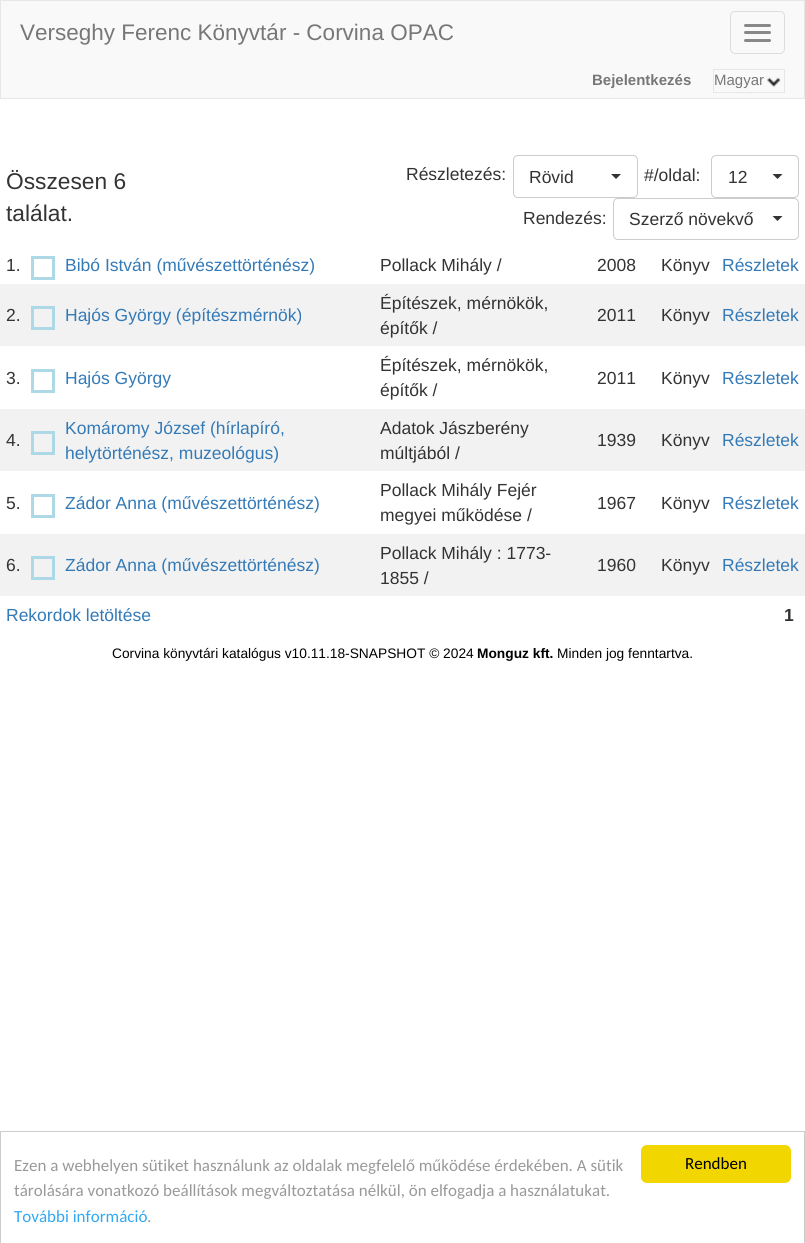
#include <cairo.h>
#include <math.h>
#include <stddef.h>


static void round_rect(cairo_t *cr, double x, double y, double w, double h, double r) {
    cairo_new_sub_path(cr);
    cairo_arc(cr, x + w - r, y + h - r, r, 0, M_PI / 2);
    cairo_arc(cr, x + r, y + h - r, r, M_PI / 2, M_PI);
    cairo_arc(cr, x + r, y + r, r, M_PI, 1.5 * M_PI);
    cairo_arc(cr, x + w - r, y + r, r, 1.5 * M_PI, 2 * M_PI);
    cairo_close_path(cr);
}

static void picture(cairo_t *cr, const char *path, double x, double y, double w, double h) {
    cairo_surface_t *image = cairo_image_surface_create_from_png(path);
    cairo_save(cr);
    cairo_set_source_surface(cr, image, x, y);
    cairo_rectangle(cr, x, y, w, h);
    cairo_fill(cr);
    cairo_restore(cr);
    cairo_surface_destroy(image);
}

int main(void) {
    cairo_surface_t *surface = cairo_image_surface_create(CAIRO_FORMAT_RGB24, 805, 1243);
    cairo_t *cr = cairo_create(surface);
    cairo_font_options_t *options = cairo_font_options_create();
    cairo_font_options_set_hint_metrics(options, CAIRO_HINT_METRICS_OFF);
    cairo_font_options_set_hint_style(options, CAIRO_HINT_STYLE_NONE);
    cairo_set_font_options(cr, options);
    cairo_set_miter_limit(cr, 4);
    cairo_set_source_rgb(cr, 1, 1, 1);
    cairo_paint(cr);
    cairo_set_source_rgb(cr, 0.973, 0.973, 0.973);
    cairo_rectangle(cr, 0.5, 0.5, 804, 98);
    cairo_fill_preserve(cr);
    cairo_set_source_rgb(cr, 0.906, 0.906, 0.906);
    cairo_set_line_width(cr, 1);
    cairo_stroke(cr);
    cairo_select_font_face(cr, "Liberation Sans", CAIRO_FONT_SLANT_NORMAL, CAIRO_FONT_WEIGHT_NORMAL);
    cairo_set_font_size(cr, 22.5);
    cairo_set_source_rgb(cr, 0.467, 0.467, 0.467);
    cairo_move_to(cr, 20, 40);
    cairo_show_text(cr, "Verseghy Ferenc Könyvtár - Corvina OPAC");
    round_rect(cr, 730.5, 11.5, 54, 42, 4.5);
    cairo_set_source_rgb(cr, 0.867, 0.867, 0.867);
    cairo_stroke(cr);
    cairo_set_source_rgb(cr, 0.533, 0.533, 0.533);
    round_rect(cr, 744, 24, 27, 3, 1.5);
    cairo_fill(cr);
    round_rect(cr, 744, 31, 27, 3, 1.5);
    cairo_fill(cr);
    round_rect(cr, 744, 39, 27, 3, 1.5);
    cairo_fill(cr);
    cairo_select_font_face(cr, "Liberation Sans", CAIRO_FONT_SLANT_NORMAL, CAIRO_FONT_WEIGHT_BOLD);
    cairo_set_font_size(cr, 15);
    cairo_set_source_rgb(cr, 0.467, 0.467, 0.467);
    cairo_move_to(cr, 592, 85);
    cairo_show_text(cr, "Bejelentkezés");
    picture(cr, "img1.png", 767, 77, 14, 10);
    cairo_rectangle(cr, 713.5, 69.5, 71, 23);
    cairo_set_source_rgb(cr, 0.906, 0.906, 0.906);
    cairo_stroke(cr);
    cairo_select_font_face(cr, "Liberation Sans", CAIRO_FONT_SLANT_NORMAL, CAIRO_FONT_WEIGHT_NORMAL);
    cairo_set_source_rgb(cr, 0.467, 0.467, 0.467);
    cairo_move_to(cr, 714, 85);
    cairo_show_text(cr, "Magyar");
    cairo_set_font_size(cr, 22.75);
    cairo_set_source_rgb(cr, 0.2, 0.2, 0.2);
    cairo_move_to(cr, 6, 189);
    cairo_show_text(cr, "Összesen 6");
    cairo_move_to(cr, 6, 221);
    cairo_show_text(cr, "találat.");
    cairo_set_font_size(cr, 17.5);
    cairo_move_to(cr, 406, 180);
    cairo_show_text(cr, "Részletezés:");
    round_rect(cr, 513.5, 155.5, 124, 42, 4.5);
    cairo_set_source_rgb(cr, 0.8, 0.8, 0.8);
    cairo_stroke(cr);
    cairo_set_source_rgb(cr, 0.2, 0.2, 0.2);
    cairo_move_to(cr, 529, 183);
    cairo_show_text(cr, "Rövid");
    cairo_new_path(cr);
    cairo_move_to(cr, 611, 174);
    cairo_line_to(cr, 621, 174);
    cairo_line_to(cr, 616, 179);
    cairo_close_path(cr);
    cairo_fill(cr);
    cairo_move_to(cr, 644, 181);
    cairo_show_text(cr, "#/oldal:");
    round_rect(cr, 711.5, 155.5, 87, 42, 4.5);
    cairo_set_source_rgb(cr, 0.8, 0.8, 0.8);
    cairo_stroke(cr);
    cairo_set_source_rgb(cr, 0.2, 0.2, 0.2);
    cairo_move_to(cr, 728, 183);
    cairo_show_text(cr, "12");
    cairo_new_path(cr);
    cairo_move_to(cr, 772.5, 174);
    cairo_line_to(cr, 782.5, 174);
    cairo_line_to(cr, 777.5, 179);
    cairo_close_path(cr);
    cairo_fill(cr);
    cairo_move_to(cr, 523, 224);
    cairo_show_text(cr, "Rendezés:");
    round_rect(cr, 613.5, 198.5, 185, 41, 4.5);
    cairo_set_source_rgb(cr, 0.8, 0.8, 0.8);
    cairo_stroke(cr);
    cairo_set_source_rgb(cr, 0.2, 0.2, 0.2);
    cairo_move_to(cr, 629, 225);
    cairo_show_text(cr, "Szerző növekvő");
    cairo_new_path(cr);
    cairo_move_to(cr, 772.5, 216);
    cairo_line_to(cr, 782.5, 216);
    cairo_line_to(cr, 777.5, 221);
    cairo_close_path(cr);
    cairo_fill(cr);
    cairo_move_to(cr, 6, 271);
    cairo_show_text(cr, "1.");
    cairo_rectangle(cr, 32.5, 257.5, 21, 21);
    cairo_set_source_rgb(cr, 0.678, 0.847, 0.902);
    cairo_set_line_width(cr, 3);
    cairo_stroke(cr);
    cairo_set_source_rgb(cr, 0.2, 0.478, 0.718);
    cairo_move_to(cr, 65, 271);
    cairo_show_text(cr, "Bibó István (művészettörténész)");
    cairo_set_source_rgb(cr, 0.2, 0.2, 0.2);
    cairo_move_to(cr, 380, 271);
    cairo_show_text(cr, "Pollack Mihály /");
    cairo_move_to(cr, 597, 271);
    cairo_show_text(cr, "2008");
    cairo_move_to(cr, 661, 271);
    cairo_show_text(cr, "Könyv");
    cairo_set_source_rgb(cr, 0.2, 0.478, 0.718);
    cairo_move_to(cr, 722, 271);
    cairo_show_text(cr, "Részletek");
    cairo_set_source_rgb(cr, 0.949, 0.949, 0.949);
    cairo_rectangle(cr, 0, 284, 805, 62);
    cairo_fill(cr);
    cairo_set_source_rgb(cr, 0.2, 0.2, 0.2);
    cairo_move_to(cr, 6, 321);
    cairo_show_text(cr, "2.");
    cairo_rectangle(cr, 32.5, 307.5, 21, 21);
    cairo_set_source_rgb(cr, 0.678, 0.847, 0.902);
    cairo_stroke(cr);
    cairo_set_source_rgb(cr, 0.2, 0.478, 0.718);
    cairo_move_to(cr, 65, 321);
    cairo_show_text(cr, "Hajós György (építészmérnök)");
    cairo_set_source_rgb(cr, 0.2, 0.2, 0.2);
    cairo_move_to(cr, 380, 309);
    cairo_show_text(cr, "Építészek, mérnökök,");
    cairo_move_to(cr, 380, 334);
    cairo_show_text(cr, "építők /");
    cairo_move_to(cr, 597, 321);
    cairo_show_text(cr, "2011");
    cairo_move_to(cr, 661, 321);
    cairo_show_text(cr, "Könyv");
    cairo_set_source_rgb(cr, 0.2, 0.478, 0.718);
    cairo_move_to(cr, 722, 321);
    cairo_show_text(cr, "Részletek");
    cairo_set_source_rgb(cr, 0.2, 0.2, 0.2);
    cairo_move_to(cr, 6, 384);
    cairo_show_text(cr, "3.");
    cairo_rectangle(cr, 32.5, 370.5, 21, 21);
    cairo_set_source_rgb(cr, 0.678, 0.847, 0.902);
    cairo_stroke(cr);
    cairo_set_source_rgb(cr, 0.2, 0.478, 0.718);
    cairo_move_to(cr, 65, 384);
    cairo_show_text(cr, "Hajós György");
    cairo_set_source_rgb(cr, 0.2, 0.2, 0.2);
    cairo_move_to(cr, 380, 371);
    cairo_show_text(cr, "Építészek, mérnökök,");
    cairo_move_to(cr, 380, 396);
    cairo_show_text(cr, "építők /");
    cairo_move_to(cr, 597, 384);
    cairo_show_text(cr, "2011");
    cairo_move_to(cr, 661, 384);
    cairo_show_text(cr, "Könyv");
    cairo_set_source_rgb(cr, 0.2, 0.478, 0.718);
    cairo_move_to(cr, 722, 384);
    cairo_show_text(cr, "Részletek");
    cairo_set_source_rgb(cr, 0.949, 0.949, 0.949);
    cairo_rectangle(cr, 0, 409, 805, 62);
    cairo_fill(cr);
    cairo_set_source_rgb(cr, 0.2, 0.2, 0.2);
    cairo_move_to(cr, 6, 446);
    cairo_show_text(cr, "4.");
    cairo_rectangle(cr, 32.5, 432.5, 21, 21);
    cairo_set_source_rgb(cr, 0.678, 0.847, 0.902);
    cairo_stroke(cr);
    cairo_set_source_rgb(cr, 0.2, 0.478, 0.718);
    cairo_move_to(cr, 65, 434);
    cairo_show_text(cr, "Komáromy József (hírlapíró,");
    cairo_move_to(cr, 65, 459);
    cairo_show_text(cr, "helytörténész, muzeológus)");
    cairo_set_source_rgb(cr, 0.2, 0.2, 0.2);
    cairo_move_to(cr, 380, 434);
    cairo_show_text(cr, "Adatok Jászberény");
    cairo_move_to(cr, 380, 459);
    cairo_show_text(cr, "múltjából /");
    cairo_move_to(cr, 597, 446);
    cairo_show_text(cr, "1939");
    cairo_move_to(cr, 661, 446);
    cairo_show_text(cr, "Könyv");
    cairo_set_source_rgb(cr, 0.2, 0.478, 0.718);
    cairo_move_to(cr, 722, 446);
    cairo_show_text(cr, "Részletek");
    cairo_set_source_rgb(cr, 0.2, 0.2, 0.2);
    cairo_move_to(cr, 6, 509);
    cairo_show_text(cr, "5.");
    cairo_rectangle(cr, 32.5, 495.5, 21, 21);
    cairo_set_source_rgb(cr, 0.678, 0.847, 0.902);
    cairo_stroke(cr);
    cairo_set_source_rgb(cr, 0.2, 0.478, 0.718);
    cairo_move_to(cr, 65, 509);
    cairo_show_text(cr, "Zádor Anna (művészettörténész)");
    cairo_set_source_rgb(cr, 0.2, 0.2, 0.2);
    cairo_move_to(cr, 380, 496);
    cairo_show_text(cr, "Pollack Mihály Fejér");
    cairo_move_to(cr, 380, 521);
    cairo_show_text(cr, "megyei működése /");
    cairo_move_to(cr, 597, 509);
    cairo_show_text(cr, "1967");
    cairo_move_to(cr, 661, 509);
    cairo_show_text(cr, "Könyv");
    cairo_set_source_rgb(cr, 0.2, 0.478, 0.718);
    cairo_move_to(cr, 722, 509);
    cairo_show_text(cr, "Részletek");
    cairo_set_source_rgb(cr, 0.949, 0.949, 0.949);
    cairo_rectangle(cr, 0, 534, 805, 62);
    cairo_fill(cr);
    cairo_set_source_rgb(cr, 0.2, 0.2, 0.2);
    cairo_move_to(cr, 6, 571);
    cairo_show_text(cr, "6.");
    cairo_rectangle(cr, 32.5, 557.5, 21, 21);
    cairo_set_source_rgb(cr, 0.678, 0.847, 0.902);
    cairo_stroke(cr);
    cairo_set_source_rgb(cr, 0.2, 0.478, 0.718);
    cairo_move_to(cr, 65, 571);
    cairo_show_text(cr, "Zádor Anna (művészettörténész)");
    cairo_set_source_rgb(cr, 0.2, 0.2, 0.2);
    cairo_move_to(cr, 380, 559);
    cairo_show_text(cr, "Pollack Mihály : 1773-");
    cairo_move_to(cr, 380, 584);
    cairo_show_text(cr, "1855 /");
    cairo_move_to(cr, 597, 571);
    cairo_show_text(cr, "1960");
    cairo_move_to(cr, 661, 571);
    cairo_show_text(cr, "Könyv");
    cairo_set_source_rgb(cr, 0.2, 0.478, 0.718);
    cairo_move_to(cr, 722, 571);
    cairo_show_text(cr, "Részletek");
    cairo_move_to(cr, 6, 621);
    cairo_show_text(cr, "Rekordok letöltése");
    cairo_select_font_face(cr, "Liberation Sans", CAIRO_FONT_SLANT_NORMAL, CAIRO_FONT_WEIGHT_BOLD);
    cairo_set_source_rgb(cr, 0.2, 0.2, 0.2);
    cairo_move_to(cr, 784, 621);
    cairo_show_text(cr, "1");
    cairo_select_font_face(cr, "Liberation Sans", CAIRO_FONT_SLANT_NORMAL, CAIRO_FONT_WEIGHT_NORMAL);
    cairo_set_font_size(cr, 13.75);
    cairo_set_source_rgb(cr, 0, 0, 0);
    cairo_move_to(cr, 112, 658);
    cairo_show_text(cr, "Corvina könyvtári katalógus v10.11.18-SNAPSHOT © 2024");
    cairo_select_font_face(cr, "Liberation Sans", CAIRO_FONT_SLANT_NORMAL, CAIRO_FONT_WEIGHT_BOLD);
    cairo_move_to(cr, 477, 658);
    cairo_show_text(cr, "Monguz kft.");
    cairo_select_font_face(cr, "Liberation Sans", CAIRO_FONT_SLANT_NORMAL, CAIRO_FONT_WEIGHT_NORMAL);
    cairo_move_to(cr, 557, 658);
    cairo_show_text(cr, "Minden jog fenntartva.");
    cairo_rectangle(cr, 0.5, 1131.5, 804, 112);
    cairo_set_source_rgb(cr, 0.8, 0.8, 0.8);
    cairo_set_line_width(cr, 1);
    cairo_stroke(cr);
    cairo_select_font_face(cr, "Carlito", CAIRO_FONT_SLANT_NORMAL, CAIRO_FONT_WEIGHT_NORMAL);
    cairo_set_font_size(cr, 17);
    cairo_set_source_rgb(cr, 0.6, 0.6, 0.6);
    cairo_move_to(cr, 14, 1171);
    cairo_show_text(cr, "Ezen a webhelyen sütiket használunk az oldalak megfelelő működése érdekében. A sütik");
    cairo_move_to(cr, 14, 1196);
    cairo_show_text(cr, "tárolására vonatkozó beállítások megváltoztatása nélkül, ön elfogadja a használatukat.");
    cairo_set_source_rgb(cr, 0.192, 0.659, 0.941);
    cairo_move_to(cr, 14, 1222);
    cairo_show_text(cr, "További információ");
    cairo_set_source_rgb(cr, 0.6, 0.6, 0.6);
    cairo_move_to(cr, 147, 1222);
    cairo_show_text(cr, ".");
    cairo_set_source_rgb(cr, 0.945, 0.839, 0);
    round_rect(cr, 641, 1145, 150, 38, 6);
    cairo_fill(cr);
    cairo_set_source_rgb(cr, 0, 0, 0);
    cairo_move_to(cr, 685, 1169);
    cairo_show_text(cr, "Rendben");
    cairo_surface_write_to_png(surface, "page.png");
    cairo_font_options_destroy(options);
    cairo_destroy(cr);
    cairo_surface_destroy(surface);
    return 0;
}
